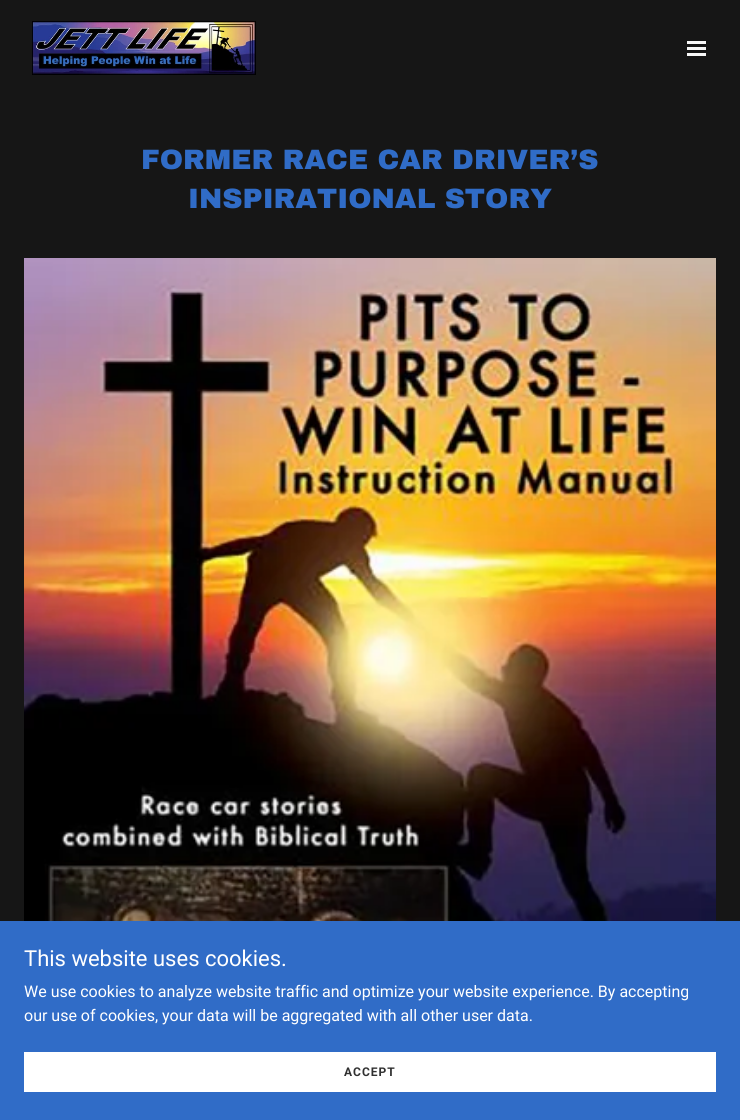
#include <cairo.h>
#include <math.h>
#include <stddef.h>


static void spaced_text(cairo_t *cr, double x, double y, const char *s, double letter, double word) {
    cairo_move_to(cr, x, y);
    while (*s) {
        char ch[5] = {0};
        int n = 0;
        do ch[n++] = *s++; while ((*s & 0xC0) == 0x80);
        cairo_show_text(cr, ch);
        cairo_rel_move_to(cr, letter + word * (*ch == ' '), 0);
    }
}

static void picture(cairo_t *cr, const char *path, double x, double y, double w, double h) {
    cairo_surface_t *image = cairo_image_surface_create_from_png(path);
    cairo_save(cr);
    cairo_set_source_surface(cr, image, x, y);
    cairo_rectangle(cr, x, y, w, h);
    cairo_fill(cr);
    cairo_restore(cr);
    cairo_surface_destroy(image);
}

int main(void) {
    cairo_surface_t *surface = cairo_image_surface_create(CAIRO_FORMAT_RGB24, 740, 1120);
    cairo_t *cr = cairo_create(surface);
    cairo_font_options_t *options = cairo_font_options_create();
    cairo_font_options_set_hint_metrics(options, CAIRO_HINT_METRICS_OFF);
    cairo_font_options_set_hint_style(options, CAIRO_HINT_STYLE_NONE);
    cairo_set_font_options(cr, options);
    cairo_set_miter_limit(cr, 4);
    cairo_set_source_rgb(cr, 0.086, 0.086, 0.086);
    cairo_paint(cr);
    picture(cr, "img1.png", 32, 21, 224, 54);
    cairo_set_source_rgb(cr, 0.969, 0.969, 0.969);
    cairo_rectangle(cr, 687, 41, 19, 3);
    cairo_fill(cr);
    cairo_rectangle(cr, 687, 47, 19, 3);
    cairo_fill(cr);
    cairo_rectangle(cr, 687, 53, 19, 3);
    cairo_fill(cr);
    cairo_select_font_face(cr, "Archivo Black Black", CAIRO_FONT_SLANT_NORMAL, CAIRO_FONT_WEIGHT_NORMAL);
    cairo_set_font_size(cr, 28);
    cairo_set_source_rgb(cr, 0.188, 0.424, 0.78);
    cairo_move_to(cr, 141, 169);
    cairo_show_text(cr, "FORMER RACE CAR DRIVER’S");
    cairo_move_to(cr, 188, 208);
    cairo_show_text(cr, "INSPIRATIONAL STORY");
    picture(cr, "img2.png", 24, 258, 692, 663);
    cairo_rectangle(cr, 0, 921, 740, 199);
    cairo_fill(cr);
    cairo_select_font_face(cr, "Roboto", CAIRO_FONT_SLANT_NORMAL, CAIRO_FONT_WEIGHT_NORMAL);
    cairo_set_font_size(cr, 22);
    cairo_set_source_rgb(cr, 1, 1, 1);
    cairo_move_to(cr, 24, 966);
    cairo_show_text(cr, "This website uses cookies.");
    cairo_set_font_size(cr, 16);
    cairo_move_to(cr, 24, 997);
    cairo_show_text(cr, "We use cookies to analyze website traffic and optimize your website experience. By accepting");
    cairo_move_to(cr, 24, 1021);
    cairo_show_text(cr, "our use of cookies, your data will be aggregated with all other user data.");
    cairo_rectangle(cr, 24, 1052, 692, 40);
    cairo_fill(cr);
    cairo_select_font_face(cr, "Roboto", CAIRO_FONT_SLANT_NORMAL, CAIRO_FONT_WEIGHT_BOLD);
    cairo_set_font_size(cr, 12);
    cairo_set_source_rgb(cr, 0.188, 0.188, 0.188);
    spaced_text(cr, 344, 1076, "ACCEPT", 1, 0);
    cairo_surface_write_to_png(surface, "page.png");
    cairo_font_options_destroy(options);
    cairo_destroy(cr);
    cairo_surface_destroy(surface);
    return 0;
}
